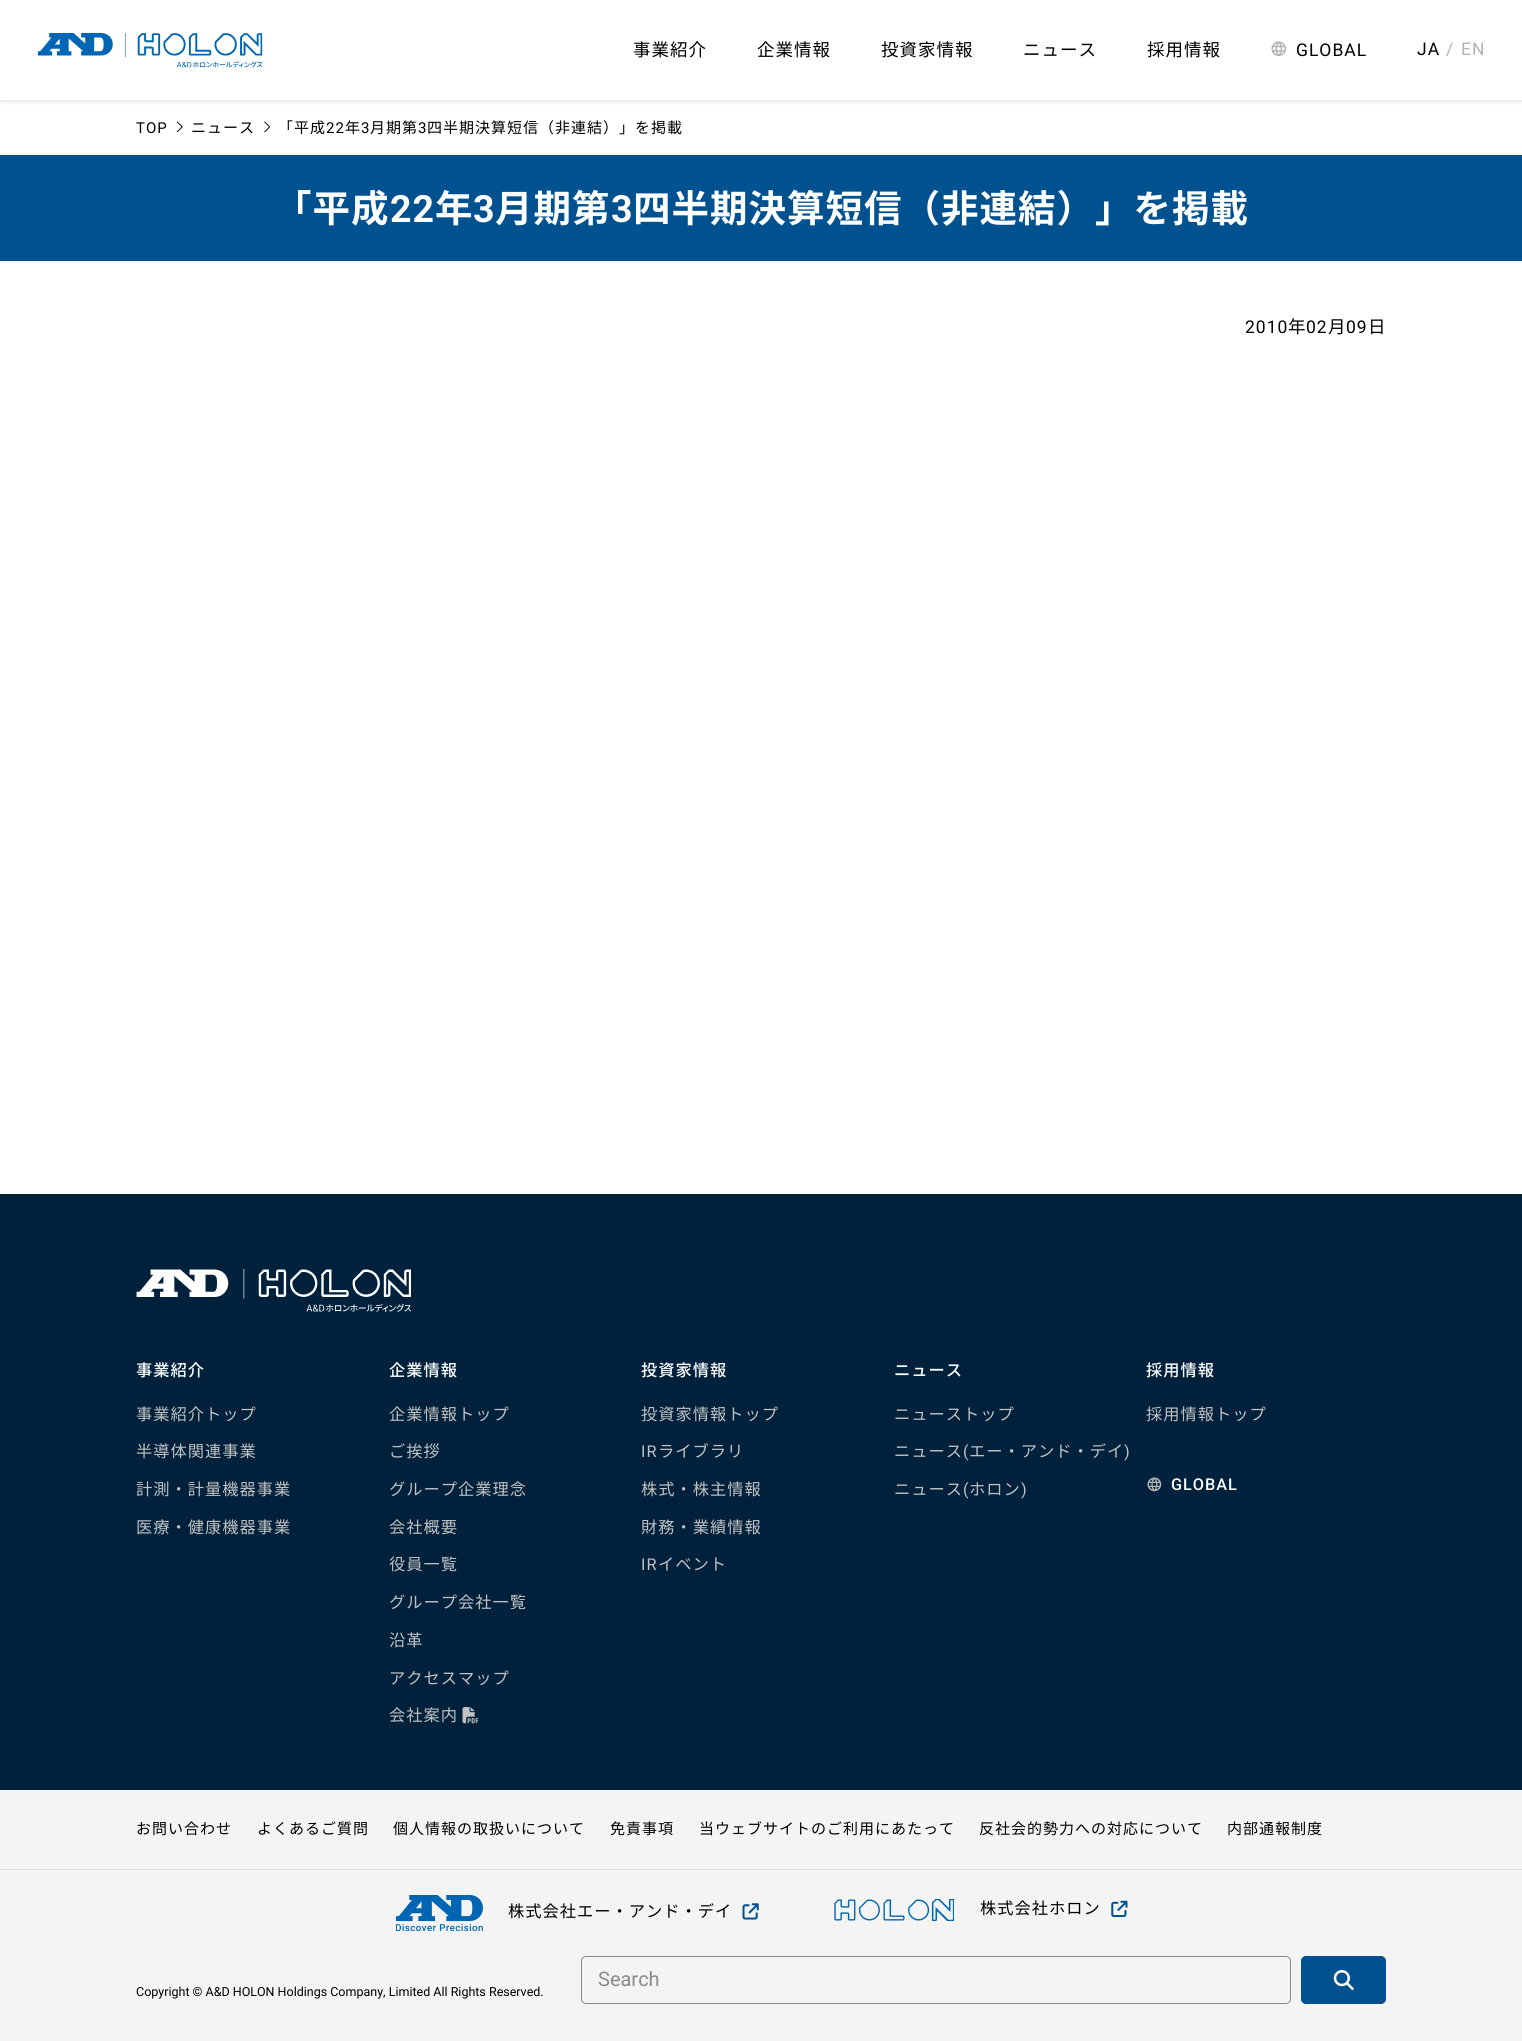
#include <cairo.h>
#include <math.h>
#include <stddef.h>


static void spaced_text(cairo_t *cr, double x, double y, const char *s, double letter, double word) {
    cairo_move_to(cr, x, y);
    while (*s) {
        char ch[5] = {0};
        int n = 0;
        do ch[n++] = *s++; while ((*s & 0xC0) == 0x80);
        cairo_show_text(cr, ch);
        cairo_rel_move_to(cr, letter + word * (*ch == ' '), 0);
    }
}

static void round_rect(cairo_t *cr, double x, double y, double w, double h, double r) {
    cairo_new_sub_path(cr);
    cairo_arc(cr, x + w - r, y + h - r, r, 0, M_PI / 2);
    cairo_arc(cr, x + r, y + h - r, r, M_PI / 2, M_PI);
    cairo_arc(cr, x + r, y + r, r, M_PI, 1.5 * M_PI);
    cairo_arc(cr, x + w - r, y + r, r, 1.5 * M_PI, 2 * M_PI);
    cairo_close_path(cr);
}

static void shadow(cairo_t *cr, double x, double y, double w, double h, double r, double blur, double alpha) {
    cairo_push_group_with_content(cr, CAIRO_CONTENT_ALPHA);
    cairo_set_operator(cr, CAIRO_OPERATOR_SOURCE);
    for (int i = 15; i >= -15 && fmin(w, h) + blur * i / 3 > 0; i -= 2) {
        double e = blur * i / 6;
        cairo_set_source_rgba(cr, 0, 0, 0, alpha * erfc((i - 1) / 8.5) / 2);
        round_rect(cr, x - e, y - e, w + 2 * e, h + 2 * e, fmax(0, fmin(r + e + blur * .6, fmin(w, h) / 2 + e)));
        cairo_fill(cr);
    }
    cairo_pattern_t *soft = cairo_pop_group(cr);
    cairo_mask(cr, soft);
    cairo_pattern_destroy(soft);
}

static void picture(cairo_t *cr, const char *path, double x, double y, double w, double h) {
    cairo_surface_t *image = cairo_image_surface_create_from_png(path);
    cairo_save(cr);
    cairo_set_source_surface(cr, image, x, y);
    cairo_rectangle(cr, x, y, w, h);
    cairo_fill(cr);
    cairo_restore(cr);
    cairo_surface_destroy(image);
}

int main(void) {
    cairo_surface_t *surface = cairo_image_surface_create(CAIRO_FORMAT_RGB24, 1522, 2041);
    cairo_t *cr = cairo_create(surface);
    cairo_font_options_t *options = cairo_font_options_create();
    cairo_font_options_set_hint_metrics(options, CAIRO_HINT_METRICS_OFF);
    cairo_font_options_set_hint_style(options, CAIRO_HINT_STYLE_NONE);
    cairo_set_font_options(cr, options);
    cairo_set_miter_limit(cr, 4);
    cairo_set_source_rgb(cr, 1, 1, 1);
    cairo_paint(cr);
    cairo_save(cr);
    cairo_rectangle(cr, 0, 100, 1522, 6);
    cairo_clip(cr);
    cairo_set_source_rgb(cr, 0.867, 0.867, 0.867);
    shadow(cr, 0, 1, 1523, 100, 0, 2.5, 1);
    cairo_restore(cr);
    picture(cr, "img1.png", 37, 32, 226, 36);
    cairo_select_font_face(cr, "Noto Sans JP", CAIRO_FONT_SLANT_NORMAL, CAIRO_FONT_WEIGHT_NORMAL);
    cairo_set_font_size(cr, 17.5);
    cairo_set_source_rgb(cr, 0, 0, 0);
    spaced_text(cr, 633, 56, "事業紹介", 1, 0);
    spaced_text(cr, 757, 56, "企業情報", 1, 0);
    spaced_text(cr, 881, 56, "投資家情報", 1, 0);
    spaced_text(cr, 1023, 56, "ニュース", 1, 0);
    spaced_text(cr, 1147, 56, "採用情報", 1, 0);
    picture(cr, "img2.png", 1271, 41, 15, 15);
    cairo_select_font_face(cr, "Roboto", CAIRO_FONT_SLANT_NORMAL, CAIRO_FONT_WEIGHT_NORMAL);
    spaced_text(cr, 1296, 56, "GLOBAL", 1, 0);
    spaced_text(cr, 1417, 55, "JA", 1, 0);
    cairo_set_source_rgb(cr, 0.698, 0.698, 0.698);
    spaced_text(cr, 1446, 55, "/", 1, 0);
    spaced_text(cr, 1461, 55, "EN", 1, 0);
    cairo_set_font_size(cr, 15);
    cairo_set_source_rgb(cr, 0, 0, 0);
    spaced_text(cr, 136, 133, "TOP", 1, 0);
    picture(cr, "img3.png", 176, 121, 7, 12);
    cairo_select_font_face(cr, "Noto Sans JP", CAIRO_FONT_SLANT_NORMAL, CAIRO_FONT_WEIGHT_NORMAL);
    spaced_text(cr, 191, 133, "ニュース", 1, 0);
    picture(cr, "img4.png", 264, 121, 7, 12);
    spaced_text(cr, 278, 133, "「平成", 1, 0);
    cairo_select_font_face(cr, "Roboto", CAIRO_FONT_SLANT_NORMAL, CAIRO_FONT_WEIGHT_NORMAL);
    spaced_text(cr, 326, 133, "22", 1, 0);
    cairo_select_font_face(cr, "Noto Sans JP", CAIRO_FONT_SLANT_NORMAL, CAIRO_FONT_WEIGHT_NORMAL);
    spaced_text(cr, 345, 133, "年", 1, 0);
    cairo_select_font_face(cr, "Roboto", CAIRO_FONT_SLANT_NORMAL, CAIRO_FONT_WEIGHT_NORMAL);
    spaced_text(cr, 361, 133, "3", 1, 0);
    cairo_select_font_face(cr, "Noto Sans JP", CAIRO_FONT_SLANT_NORMAL, CAIRO_FONT_WEIGHT_NORMAL);
    spaced_text(cr, 370, 133, "月期第", 1, 0);
    cairo_select_font_face(cr, "Roboto", CAIRO_FONT_SLANT_NORMAL, CAIRO_FONT_WEIGHT_NORMAL);
    spaced_text(cr, 418, 133, "3", 1, 0);
    cairo_select_font_face(cr, "Noto Sans JP", CAIRO_FONT_SLANT_NORMAL, CAIRO_FONT_WEIGHT_NORMAL);
    spaced_text(cr, 427, 133, "四半期決算短信（非連結）」を掲載", 1, 0);
    cairo_set_source_rgb(cr, 0, 0.318, 0.561);
    cairo_rectangle(cr, 0, 155, 1522, 106);
    cairo_fill(cr);
    cairo_select_font_face(cr, "Noto Sans JP", CAIRO_FONT_SLANT_NORMAL, CAIRO_FONT_WEIGHT_BOLD);
    cairo_set_font_size(cr, 37.5);
    cairo_set_source_rgb(cr, 1, 1, 1);
    spaced_text(cr, 274, 222, "「平成", 1, 0);
    cairo_select_font_face(cr, "Roboto", CAIRO_FONT_SLANT_NORMAL, CAIRO_FONT_WEIGHT_BOLD);
    spaced_text(cr, 390, 222, "22", 1, 0);
    cairo_select_font_face(cr, "Noto Sans JP", CAIRO_FONT_SLANT_NORMAL, CAIRO_FONT_WEIGHT_BOLD);
    spaced_text(cr, 435, 222, "年", 1, 0);
    cairo_select_font_face(cr, "Roboto", CAIRO_FONT_SLANT_NORMAL, CAIRO_FONT_WEIGHT_BOLD);
    spaced_text(cr, 473, 222, "3", 1, 0);
    cairo_select_font_face(cr, "Noto Sans JP", CAIRO_FONT_SLANT_NORMAL, CAIRO_FONT_WEIGHT_BOLD);
    spaced_text(cr, 495, 222, "月期第", 1, 0);
    cairo_select_font_face(cr, "Roboto", CAIRO_FONT_SLANT_NORMAL, CAIRO_FONT_WEIGHT_BOLD);
    spaced_text(cr, 611, 222, "3", 1, 0);
    cairo_select_font_face(cr, "Noto Sans JP", CAIRO_FONT_SLANT_NORMAL, CAIRO_FONT_WEIGHT_BOLD);
    spaced_text(cr, 633, 222, "四半期決算短信（非連結）」を掲載", 1, 0);
    cairo_select_font_face(cr, "Roboto", CAIRO_FONT_SLANT_NORMAL, CAIRO_FONT_WEIGHT_NORMAL);
    cairo_set_font_size(cr, 17.5);
    cairo_set_source_rgb(cr, 0, 0, 0);
    spaced_text(cr, 1245, 333, "2010", 1, 0);
    cairo_select_font_face(cr, "Noto Sans JP", CAIRO_FONT_SLANT_NORMAL, CAIRO_FONT_WEIGHT_NORMAL);
    spaced_text(cr, 1288, 333, "年", 1, 0);
    cairo_select_font_face(cr, "Roboto", CAIRO_FONT_SLANT_NORMAL, CAIRO_FONT_WEIGHT_NORMAL);
    spaced_text(cr, 1306, 333, "02", 1, 0);
    cairo_select_font_face(cr, "Noto Sans JP", CAIRO_FONT_SLANT_NORMAL, CAIRO_FONT_WEIGHT_NORMAL);
    spaced_text(cr, 1328, 333, "月", 1, 0);
    cairo_select_font_face(cr, "Roboto", CAIRO_FONT_SLANT_NORMAL, CAIRO_FONT_WEIGHT_NORMAL);
    spaced_text(cr, 1346, 333, "09", 1, 0);
    cairo_select_font_face(cr, "Noto Sans JP", CAIRO_FONT_SLANT_NORMAL, CAIRO_FONT_WEIGHT_NORMAL);
    spaced_text(cr, 1368, 333, "日", 1, 0);
    cairo_set_source_rgb(cr, 0.957, 0.957, 0.957);
    cairo_rectangle(cr, 0, 1790, 1522, 251);
    cairo_fill(cr);
    cairo_set_source_rgb(cr, 0, 0.129, 0.235);
    cairo_rectangle(cr, 0, 1194, 1522, 596);
    cairo_fill(cr);
    picture(cr, "img5.png", 136, 1269, 275, 43);
    cairo_select_font_face(cr, "Noto Sans JP Medium", CAIRO_FONT_SLANT_NORMAL, CAIRO_FONT_WEIGHT_NORMAL);
    cairo_set_font_size(cr, 16.25);
    cairo_set_source_rgb(cr, 1, 1, 1);
    spaced_text(cr, 136, 1376, "事業紹介", 1, 0);
    cairo_select_font_face(cr, "Noto Sans JP", CAIRO_FONT_SLANT_NORMAL, CAIRO_FONT_WEIGHT_NORMAL);
    cairo_set_source_rgb(cr, 0.757, 0.757, 0.757);
    spaced_text(cr, 136, 1420, "事業紹介トップ", 1, 0);
    spaced_text(cr, 136, 1457, "半導体関連事業", 1, 0);
    spaced_text(cr, 136, 1495, "計測・計量機器事業", 1, 0);
    spaced_text(cr, 136, 1533, "医療・健康機器事業", 1, 0);
    cairo_select_font_face(cr, "Noto Sans JP Medium", CAIRO_FONT_SLANT_NORMAL, CAIRO_FONT_WEIGHT_NORMAL);
    cairo_set_source_rgb(cr, 1, 1, 1);
    spaced_text(cr, 389, 1376, "企業情報", 1, 0);
    cairo_select_font_face(cr, "Noto Sans JP", CAIRO_FONT_SLANT_NORMAL, CAIRO_FONT_WEIGHT_NORMAL);
    cairo_set_source_rgb(cr, 0.757, 0.757, 0.757);
    spaced_text(cr, 389, 1420, "企業情報トップ", 1, 0);
    spaced_text(cr, 389, 1457, "ご挨拶", 1, 0);
    spaced_text(cr, 389, 1495, "グループ企業理念", 1, 0);
    spaced_text(cr, 389, 1533, "会社概要", 1, 0);
    spaced_text(cr, 389, 1570, "役員一覧", 1, 0);
    spaced_text(cr, 389, 1608, "グループ会社一覧", 1, 0);
    spaced_text(cr, 389, 1646, "沿革", 1, 0);
    spaced_text(cr, 389, 1684, "アクセスマップ", 1, 0);
    spaced_text(cr, 389, 1721, "会社案内", 1, 0);
    picture(cr, "img6.png", 462, 1707, 17, 17);
    cairo_select_font_face(cr, "Noto Sans JP Medium", CAIRO_FONT_SLANT_NORMAL, CAIRO_FONT_WEIGHT_NORMAL);
    cairo_set_source_rgb(cr, 1, 1, 1);
    spaced_text(cr, 641, 1376, "投資家情報", 1, 0);
    cairo_select_font_face(cr, "Noto Sans JP", CAIRO_FONT_SLANT_NORMAL, CAIRO_FONT_WEIGHT_NORMAL);
    cairo_set_source_rgb(cr, 0.757, 0.757, 0.757);
    spaced_text(cr, 641, 1420, "投資家情報トップ", 1, 0);
    cairo_select_font_face(cr, "Roboto", CAIRO_FONT_SLANT_NORMAL, CAIRO_FONT_WEIGHT_NORMAL);
    spaced_text(cr, 641, 1457, "IR", 1, 0);
    cairo_select_font_face(cr, "Noto Sans JP", CAIRO_FONT_SLANT_NORMAL, CAIRO_FONT_WEIGHT_NORMAL);
    spaced_text(cr, 658, 1457, "ライブラリ", 1, 0);
    spaced_text(cr, 641, 1495, "株式・株主情報", 1, 0);
    spaced_text(cr, 641, 1533, "財務・業績情報", 1, 0);
    cairo_select_font_face(cr, "Roboto", CAIRO_FONT_SLANT_NORMAL, CAIRO_FONT_WEIGHT_NORMAL);
    spaced_text(cr, 641, 1570, "IR", 1, 0);
    cairo_select_font_face(cr, "Noto Sans JP", CAIRO_FONT_SLANT_NORMAL, CAIRO_FONT_WEIGHT_NORMAL);
    spaced_text(cr, 658, 1570, "イベント", 1, 0);
    cairo_select_font_face(cr, "Noto Sans JP Medium", CAIRO_FONT_SLANT_NORMAL, CAIRO_FONT_WEIGHT_NORMAL);
    cairo_set_source_rgb(cr, 1, 1, 1);
    spaced_text(cr, 894, 1376, "ニュース", 1, 0);
    cairo_select_font_face(cr, "Noto Sans JP", CAIRO_FONT_SLANT_NORMAL, CAIRO_FONT_WEIGHT_NORMAL);
    cairo_set_source_rgb(cr, 0.757, 0.757, 0.757);
    spaced_text(cr, 894, 1420, "ニューストップ", 1, 0);
    spaced_text(cr, 894, 1457, "ニュース", 1, 0);
    cairo_select_font_face(cr, "Roboto", CAIRO_FONT_SLANT_NORMAL, CAIRO_FONT_WEIGHT_NORMAL);
    spaced_text(cr, 963, 1457, "(", 1, 0);
    cairo_select_font_face(cr, "Noto Sans JP", CAIRO_FONT_SLANT_NORMAL, CAIRO_FONT_WEIGHT_NORMAL);
    spaced_text(cr, 969, 1457, "エー・アンド・デイ", 1, 0);
    cairo_select_font_face(cr, "Roboto", CAIRO_FONT_SLANT_NORMAL, CAIRO_FONT_WEIGHT_NORMAL);
    spaced_text(cr, 1124, 1457, ")", 1, 0);
    cairo_select_font_face(cr, "Noto Sans JP", CAIRO_FONT_SLANT_NORMAL, CAIRO_FONT_WEIGHT_NORMAL);
    spaced_text(cr, 894, 1495, "ニュース", 1, 0);
    cairo_select_font_face(cr, "Roboto", CAIRO_FONT_SLANT_NORMAL, CAIRO_FONT_WEIGHT_NORMAL);
    spaced_text(cr, 963, 1495, "(", 1, 0);
    cairo_select_font_face(cr, "Noto Sans JP", CAIRO_FONT_SLANT_NORMAL, CAIRO_FONT_WEIGHT_NORMAL);
    spaced_text(cr, 969, 1495, "ホロン", 1, 0);
    cairo_select_font_face(cr, "Roboto", CAIRO_FONT_SLANT_NORMAL, CAIRO_FONT_WEIGHT_NORMAL);
    spaced_text(cr, 1021, 1495, ")", 1, 0);
    cairo_select_font_face(cr, "Noto Sans JP Medium", CAIRO_FONT_SLANT_NORMAL, CAIRO_FONT_WEIGHT_NORMAL);
    cairo_set_source_rgb(cr, 1, 1, 1);
    spaced_text(cr, 1146, 1376, "採用情報", 1, 0);
    cairo_select_font_face(cr, "Noto Sans JP", CAIRO_FONT_SLANT_NORMAL, CAIRO_FONT_WEIGHT_NORMAL);
    cairo_set_source_rgb(cr, 0.757, 0.757, 0.757);
    spaced_text(cr, 1146, 1420, "採用情報トップ", 1, 0);
    picture(cr, "img7.png", 1147, 1477, 15, 15);
    cairo_select_font_face(cr, "Roboto Medium", CAIRO_FONT_SLANT_NORMAL, CAIRO_FONT_WEIGHT_NORMAL);
    cairo_set_source_rgb(cr, 1, 1, 1);
    spaced_text(cr, 1171, 1490, "GLOBAL", 1, 0);
    cairo_select_font_face(cr, "Noto Sans JP", CAIRO_FONT_SLANT_NORMAL, CAIRO_FONT_WEIGHT_NORMAL);
    cairo_set_font_size(cr, 15);
    cairo_set_source_rgb(cr, 0, 0, 0);
    spaced_text(cr, 136, 1834, "お問い合わせ", 1, 0);
    spaced_text(cr, 257, 1834, "よくあるご質問", 1, 0);
    spaced_text(cr, 393, 1834, "個人情報の取扱いについて", 1, 0);
    spaced_text(cr, 610, 1834, "免責事項", 1, 0);
    spaced_text(cr, 699, 1834, "当ウェブサイトのご利用にあたって", 1, 0);
    spaced_text(cr, 979, 1834, "反社会的勢力への対応について", 1, 0);
    spaced_text(cr, 1227, 1834, "内部通報制度", 1, 0);
    cairo_set_source_rgb(cr, 0.867, 0.867, 0.867);
    cairo_rectangle(cr, 0, 1869, 1522, 1);
    cairo_fill(cr);
    picture(cr, "img8.png", 396, 1895, 87, 36);
    cairo_set_font_size(cr, 16.25);
    cairo_set_source_rgb(cr, 0, 0, 0);
    spaced_text(cr, 508, 1917, "株式会社エー・アンド・デイ", 1, 0);
    picture(cr, "img9.png", 742, 1903, 17, 17);
    picture(cr, "img10.png", 834, 1899, 120, 22);
    spaced_text(cr, 980, 1914, "株式会社ホロン", 1, 0);
    picture(cr, "img11.png", 1111, 1900, 17, 17);
    round_rect(cr, 581.5, 1956.5, 709, 47, 4.5);
    cairo_set_source_rgb(cr, 0.541, 0.541, 0.541);
    cairo_set_line_width(cr, 1);
    cairo_stroke(cr);
    cairo_select_font_face(cr, "Roboto", CAIRO_FONT_SLANT_NORMAL, CAIRO_FONT_WEIGHT_NORMAL);
    cairo_set_font_size(cr, 20);
    cairo_move_to(cr, 598, 1986);
    cairo_show_text(cr, "Search");
    cairo_set_source_rgb(cr, 0, 0.318, 0.561);
    round_rect(cr, 1301.5, 1956.5, 84, 47, 4.5);
    cairo_fill_preserve(cr);
    cairo_stroke(cr);
    picture(cr, "img12.png", 1333, 1970, 21, 20);
    cairo_set_font_size(cr, 12.5);
    cairo_set_source_rgb(cr, 0, 0, 0);
    cairo_move_to(cr, 136, 1996);
    cairo_show_text(cr, "Copyright © A&D HOLON Holdings Company, Limited All Rights Reserved.");
    cairo_surface_write_to_png(surface, "page.png");
    cairo_font_options_destroy(options);
    cairo_destroy(cr);
    cairo_surface_destroy(surface);
    return 0;
}
